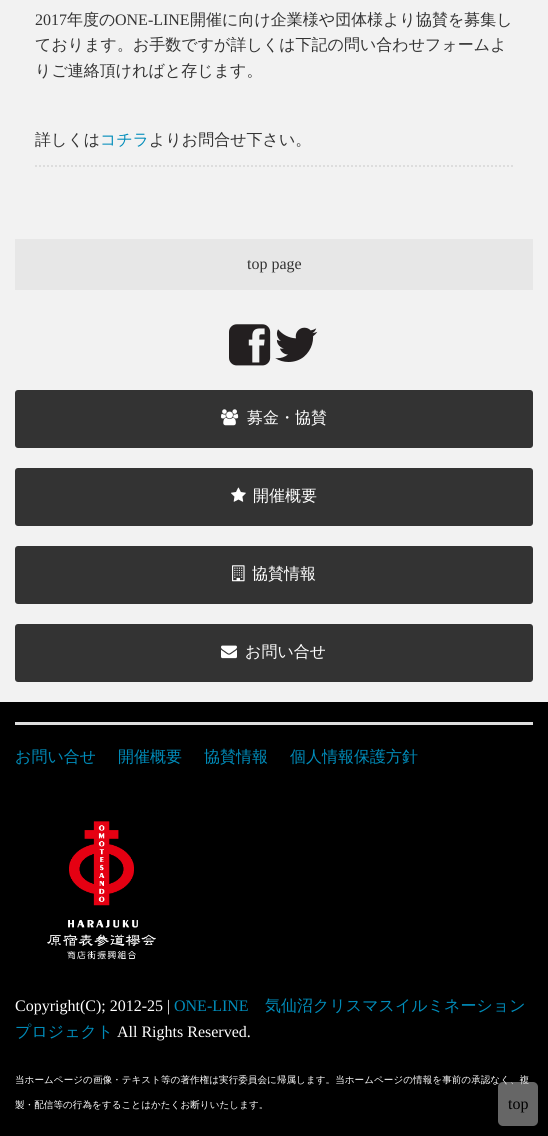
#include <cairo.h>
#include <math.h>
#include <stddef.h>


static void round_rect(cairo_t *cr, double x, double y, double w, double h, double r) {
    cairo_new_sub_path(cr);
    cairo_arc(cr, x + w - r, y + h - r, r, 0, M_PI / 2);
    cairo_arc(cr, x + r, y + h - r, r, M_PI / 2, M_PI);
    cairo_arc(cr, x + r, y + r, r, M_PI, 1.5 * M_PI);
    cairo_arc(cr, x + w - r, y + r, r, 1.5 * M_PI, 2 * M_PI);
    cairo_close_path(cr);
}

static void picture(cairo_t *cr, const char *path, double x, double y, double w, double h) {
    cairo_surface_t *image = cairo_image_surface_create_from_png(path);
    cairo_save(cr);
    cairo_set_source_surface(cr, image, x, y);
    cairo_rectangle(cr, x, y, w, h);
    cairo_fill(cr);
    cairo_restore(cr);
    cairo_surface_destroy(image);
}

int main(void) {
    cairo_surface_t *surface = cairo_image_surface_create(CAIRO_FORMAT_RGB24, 548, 1136);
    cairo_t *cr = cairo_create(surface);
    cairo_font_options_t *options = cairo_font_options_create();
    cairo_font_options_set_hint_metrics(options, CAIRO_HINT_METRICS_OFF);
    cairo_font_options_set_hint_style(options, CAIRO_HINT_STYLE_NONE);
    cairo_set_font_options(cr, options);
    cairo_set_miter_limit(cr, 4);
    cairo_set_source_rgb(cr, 0.949, 0.949, 0.949);
    cairo_paint(cr);
    cairo_new_path(cr);
    cairo_move_to(cr, 35, 166);
    cairo_line_to(cr, 513, 166);
    cairo_set_source_rgb(cr, 0.867, 0.867, 0.867);
    cairo_set_dash(cr, (double[]){2, 2}, 2, 0);
    cairo_stroke(cr);
    cairo_select_font_face(cr, "Liberation Serif", CAIRO_FONT_SLANT_NORMAL, CAIRO_FONT_WEIGHT_NORMAL);
    cairo_set_font_size(cr, 16);
    cairo_set_source_rgb(cr, 0.2, 0.2, 0.2);
    cairo_move_to(cr, 35, 25);
    cairo_show_text(cr, "2017");
    cairo_select_font_face(cr, "WenQuanYi Zen Hei Medium", CAIRO_FONT_SLANT_NORMAL, CAIRO_FONT_WEIGHT_NORMAL);
    cairo_move_to(cr, 67, 25);
    cairo_show_text(cr, "年度の");
    cairo_select_font_face(cr, "Liberation Serif", CAIRO_FONT_SLANT_NORMAL, CAIRO_FONT_WEIGHT_NORMAL);
    cairo_move_to(cr, 115, 25);
    cairo_show_text(cr, "ONE-LINE");
    cairo_select_font_face(cr, "WenQuanYi Zen Hei Medium", CAIRO_FONT_SLANT_NORMAL, CAIRO_FONT_WEIGHT_NORMAL);
    cairo_move_to(cr, 190, 25);
    cairo_show_text(cr, "開催に向け企業様や団体様より協賛を募集し");
    cairo_move_to(cr, 35, 50);
    cairo_show_text(cr, "ております。お手数ですが詳しくは下記の問い合わせフォームよ");
    cairo_move_to(cr, 35, 76);
    cairo_show_text(cr, "りご連絡頂ければと存じます。");
    cairo_move_to(cr, 35, 145);
    cairo_show_text(cr, "詳しくは");
    cairo_set_source_rgb(cr, 0, 0.549, 0.729);
    cairo_move_to(cr, 100, 145);
    cairo_show_text(cr, "コチラ");
    cairo_set_source_rgb(cr, 0.2, 0.2, 0.2);
    cairo_move_to(cr, 149, 145);
    cairo_show_text(cr, "よりお問合せ下さい。");
    cairo_set_source_rgb(cr, 0.906, 0.906, 0.906);
    cairo_rectangle(cr, 15, 239, 518, 51);
    cairo_fill(cr);
    cairo_select_font_face(cr, "Liberation Serif", CAIRO_FONT_SLANT_NORMAL, CAIRO_FONT_WEIGHT_NORMAL);
    cairo_set_source_rgb(cr, 0.2, 0.2, 0.2);
    cairo_move_to(cr, 247, 269);
    cairo_show_text(cr, "top page");
    picture(cr, "img1.png", 229, 324, 42, 42);
    picture(cr, "img2.png", 275, 327, 43, 35);
    cairo_set_source_rgb(cr, 0, 0, 0);
    cairo_rectangle(cr, 0, 702, 548, 434);
    cairo_fill(cr);
    cairo_set_source_rgb(cr, 0.2, 0.2, 0.2);
    round_rect(cr, 16, 391, 516, 56, 2);
    cairo_fill_preserve(cr);
    cairo_set_dash(cr, NULL, 0, 0);
    cairo_stroke(cr);
    picture(cr, "img3.png", 221, 409, 18, 17);
    cairo_select_font_face(cr, "WenQuanYi Zen Hei Medium", CAIRO_FONT_SLANT_NORMAL, CAIRO_FONT_WEIGHT_NORMAL);
    cairo_set_source_rgb(cr, 1, 1, 1);
    cairo_move_to(cr, 247, 423);
    cairo_show_text(cr, "募金・協賛");
    cairo_set_source_rgb(cr, 0.2, 0.2, 0.2);
    round_rect(cr, 16, 469, 516, 56, 2);
    cairo_fill_preserve(cr);
    cairo_stroke(cr);
    picture(cr, "img4.png", 231, 487, 15, 15);
    cairo_set_source_rgb(cr, 1, 1, 1);
    cairo_move_to(cr, 253, 501);
    cairo_show_text(cr, "開催概要");
    cairo_set_source_rgb(cr, 0.2, 0.2, 0.2);
    round_rect(cr, 16, 547, 516, 56, 2);
    cairo_fill_preserve(cr);
    cairo_stroke(cr);
    picture(cr, "img5.png", 232, 565, 13, 17);
    cairo_set_source_rgb(cr, 1, 1, 1);
    cairo_move_to(cr, 252, 579);
    cairo_show_text(cr, "協賛情報");
    cairo_set_source_rgb(cr, 0.2, 0.2, 0.2);
    round_rect(cr, 16, 625, 516, 56, 2);
    cairo_fill_preserve(cr);
    cairo_stroke(cr);
    picture(cr, "img6.png", 221, 645, 16, 14);
    cairo_set_source_rgb(cr, 1, 1, 1);
    cairo_move_to(cr, 245, 657);
    cairo_show_text(cr, "お問い合せ");
    cairo_set_source_rgb(cr, 0.867, 0.867, 0.867);
    cairo_rectangle(cr, 15, 722, 518, 3);
    cairo_fill(cr);
    cairo_set_source_rgb(cr, 0, 0.549, 0.729);
    cairo_move_to(cr, 15, 762);
    cairo_show_text(cr, "お問い合せ");
    cairo_move_to(cr, 118, 762);
    cairo_show_text(cr, "開催概要");
    cairo_move_to(cr, 204, 762);
    cairo_show_text(cr, "協賛情報");
    cairo_move_to(cr, 290, 762);
    cairo_show_text(cr, "個人情報保護方針");
    picture(cr, "img7.png", 47, 821, 109, 139);
    cairo_select_font_face(cr, "Liberation Serif", CAIRO_FONT_SLANT_NORMAL, CAIRO_FONT_WEIGHT_NORMAL);
    cairo_set_source_rgb(cr, 1, 1, 1);
    cairo_move_to(cr, 15, 1011);
    cairo_show_text(cr, "Copyright(C); 2012-25 |");
    cairo_set_source_rgb(cr, 0, 0.549, 0.729);
    cairo_move_to(cr, 174, 1011);
    cairo_show_text(cr, "ONE-LINE");
    cairo_select_font_face(cr, "WenQuanYi Zen Hei Medium", CAIRO_FONT_SLANT_NORMAL, CAIRO_FONT_WEIGHT_NORMAL);
    cairo_move_to(cr, 265, 1011);
    cairo_show_text(cr, "気仙沼クリスマスイルミネーション");
    cairo_move_to(cr, 15, 1037);
    cairo_show_text(cr, "プロジェクト");
    cairo_select_font_face(cr, "Liberation Serif", CAIRO_FONT_SLANT_NORMAL, CAIRO_FONT_WEIGHT_NORMAL);
    cairo_set_source_rgb(cr, 1, 1, 1);
    cairo_move_to(cr, 117, 1037);
    cairo_show_text(cr, "All Rights Reserved.");
    cairo_select_font_face(cr, "WenQuanYi Zen Hei Medium", CAIRO_FONT_SLANT_NORMAL, CAIRO_FONT_WEIGHT_NORMAL);
    cairo_set_font_size(cr, 9.6);
    cairo_move_to(cr, 15, 1083);
    cairo_show_text(cr, "当ホームページの画像・テキスト等の著作権は実行委員会に帰属します。当ホームページの情報を事前の承認なく、複");
    cairo_move_to(cr, 15, 1108);
    cairo_show_text(cr, "製・配信等の行為をすることはかたくお断りいたします。");
    cairo_set_source_rgba(cr, 0.8, 0.8, 0.8, 0.5);
    round_rect(cr, 498, 1082, 40, 44, 5);
    cairo_fill(cr);
    cairo_select_font_face(cr, "Liberation Serif", CAIRO_FONT_SLANT_NORMAL, CAIRO_FONT_WEIGHT_NORMAL);
    cairo_set_font_size(cr, 16);
    cairo_set_source_rgb(cr, 0, 0, 0);
    cairo_move_to(cr, 508, 1109);
    cairo_show_text(cr, "top");
    cairo_surface_write_to_png(surface, "page.png");
    cairo_font_options_destroy(options);
    cairo_destroy(cr);
    cairo_surface_destroy(surface);
    return 0;
}
